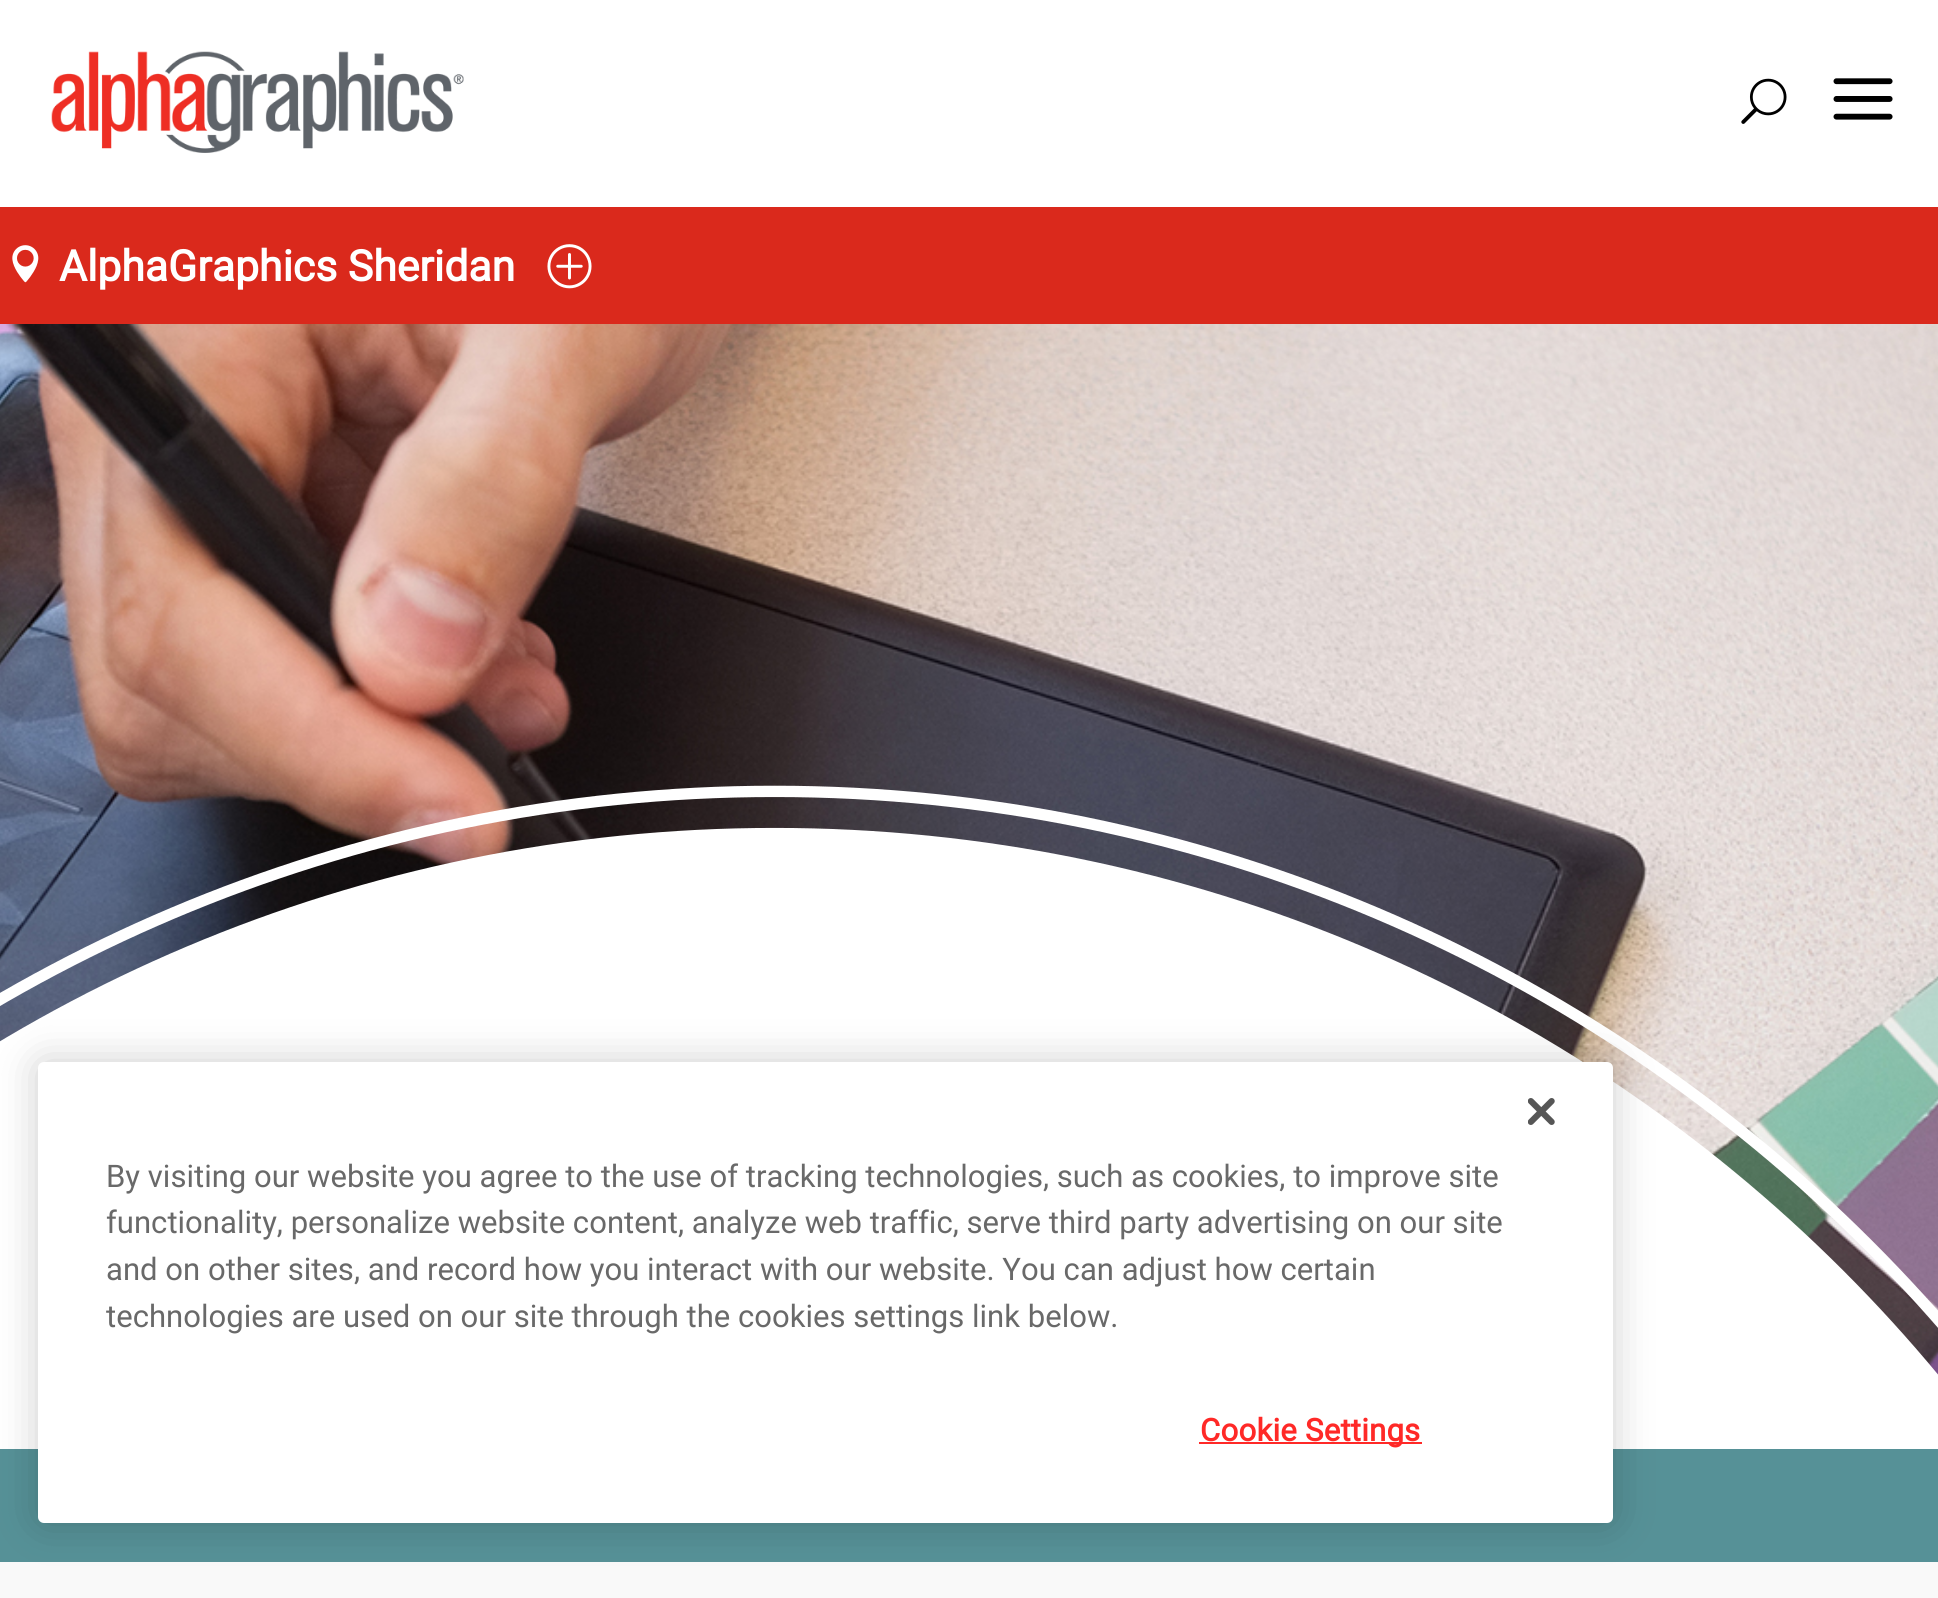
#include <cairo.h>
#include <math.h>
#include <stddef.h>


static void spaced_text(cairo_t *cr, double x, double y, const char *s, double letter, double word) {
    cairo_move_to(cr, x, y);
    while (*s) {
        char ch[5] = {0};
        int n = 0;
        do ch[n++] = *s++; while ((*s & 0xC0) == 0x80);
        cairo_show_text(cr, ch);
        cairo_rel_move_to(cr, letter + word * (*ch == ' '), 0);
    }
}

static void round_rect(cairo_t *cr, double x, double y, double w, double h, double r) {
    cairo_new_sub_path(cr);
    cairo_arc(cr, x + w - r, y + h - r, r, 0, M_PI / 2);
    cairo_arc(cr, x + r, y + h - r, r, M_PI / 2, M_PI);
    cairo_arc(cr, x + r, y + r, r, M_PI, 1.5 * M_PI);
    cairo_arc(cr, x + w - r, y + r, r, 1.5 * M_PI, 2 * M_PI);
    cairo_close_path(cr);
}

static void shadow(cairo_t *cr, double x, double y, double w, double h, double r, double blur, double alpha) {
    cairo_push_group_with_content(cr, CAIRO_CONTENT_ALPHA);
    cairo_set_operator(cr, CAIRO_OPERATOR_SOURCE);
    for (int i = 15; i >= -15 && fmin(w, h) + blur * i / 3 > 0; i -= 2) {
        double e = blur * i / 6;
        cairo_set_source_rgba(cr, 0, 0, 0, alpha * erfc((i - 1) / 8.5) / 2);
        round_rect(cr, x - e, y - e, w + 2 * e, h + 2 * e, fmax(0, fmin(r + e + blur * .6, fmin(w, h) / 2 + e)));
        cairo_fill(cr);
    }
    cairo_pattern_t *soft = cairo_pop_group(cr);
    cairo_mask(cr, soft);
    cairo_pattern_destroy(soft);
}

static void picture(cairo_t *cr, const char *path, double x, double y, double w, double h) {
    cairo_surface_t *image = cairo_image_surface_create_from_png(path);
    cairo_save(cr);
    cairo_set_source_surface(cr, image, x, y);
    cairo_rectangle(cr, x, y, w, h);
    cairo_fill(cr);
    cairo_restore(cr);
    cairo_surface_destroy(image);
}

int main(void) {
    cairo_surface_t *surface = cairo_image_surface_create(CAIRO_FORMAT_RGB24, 1938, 1598);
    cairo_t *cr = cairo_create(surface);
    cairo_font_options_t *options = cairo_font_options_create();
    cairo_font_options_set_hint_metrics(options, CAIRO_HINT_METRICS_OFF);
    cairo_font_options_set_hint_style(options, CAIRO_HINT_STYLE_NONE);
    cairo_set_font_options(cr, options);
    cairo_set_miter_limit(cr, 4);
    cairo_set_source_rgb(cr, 1, 1, 1);
    cairo_paint(cr);
    picture(cr, "img1.png", 51, 51, 413, 102);
    picture(cr, "img2.png", 1741, 78, 46, 46);
    picture(cr, "img3.png", 1833, 78, 60, 42);
    cairo_set_source_rgb(cr, 0.855, 0.161, 0.11);
    cairo_rectangle(cr, 0, 207, 1938, 117);
    cairo_fill(cr);
    picture(cr, "img4.png", 12, 245, 27, 38);
    cairo_select_font_face(cr, "Roboto", CAIRO_FONT_SLANT_NORMAL, CAIRO_FONT_WEIGHT_BOLD);
    cairo_set_font_size(cr, 42.75);
    cairo_set_source_rgb(cr, 1, 1, 1);
    cairo_move_to(cr, 59, 281);
    cairo_show_text(cr, "AlphaGraphics Sheridan");
    picture(cr, "img5.png", 547, 244, 45, 45);
    picture(cr, "img6.png", 0, 324, 1938, 1051);
    picture(cr, "img7.png", 0, 785, 1938, 664);
    cairo_set_source_rgb(cr, 0.337, 0.569, 0.592);
    cairo_rectangle(cr, 0, 1449, 1938, 113);
    cairo_fill(cr);
    cairo_set_source_rgb(cr, 0.973, 0.973, 0.973);
    cairo_rectangle(cr, 0, 1562, 1938, 36);
    cairo_fill(cr);
    cairo_set_source_rgb(cr, 0, 0, 0);
    shadow(cr, 38, 1062, 1575, 461, 6, 20, 0.2);
    cairo_set_source_rgb(cr, 1, 1, 1);
    round_rect(cr, 38, 1062, 1575, 461, 6);
    cairo_fill(cr);
    picture(cr, "img8.png", 1528, 1098, 27, 27);
    cairo_select_font_face(cr, "Roboto", CAIRO_FONT_SLANT_NORMAL, CAIRO_FONT_WEIGHT_NORMAL);
    cairo_set_font_size(cr, 31.1);
    cairo_set_source_rgb(cr, 0.412, 0.412, 0.412);
    cairo_move_to(cr, 106, 1187);
    cairo_show_text(cr, "By visiting our website you agree to the use of tracking technologies, such as cookies, to improve site");
    cairo_move_to(cr, 106, 1233);
    cairo_show_text(cr, "functionality, personalize website content, analyze web traffic, serve third party advertising on our site");
    cairo_move_to(cr, 106, 1280);
    cairo_show_text(cr, "and on other sites, and record how you interact with our website. You can adjust how certain");
    cairo_move_to(cr, 106, 1327);
    cairo_show_text(cr, "technologies are used on our site through the cookies settings link below.");
    cairo_set_source_rgb(cr, 1, 0.161, 0.153);
    cairo_rectangle(cr, 1199, 1442, 223, 2);
    cairo_fill(cr);
    cairo_select_font_face(cr, "Roboto", CAIRO_FONT_SLANT_NORMAL, CAIRO_FONT_WEIGHT_BOLD);
    spaced_text(cr, 1200, 1441, "Cookie Settings", 0.25, 0);
    cairo_surface_write_to_png(surface, "page.png");
    cairo_font_options_destroy(options);
    cairo_destroy(cr);
    cairo_surface_destroy(surface);
    return 0;
}
